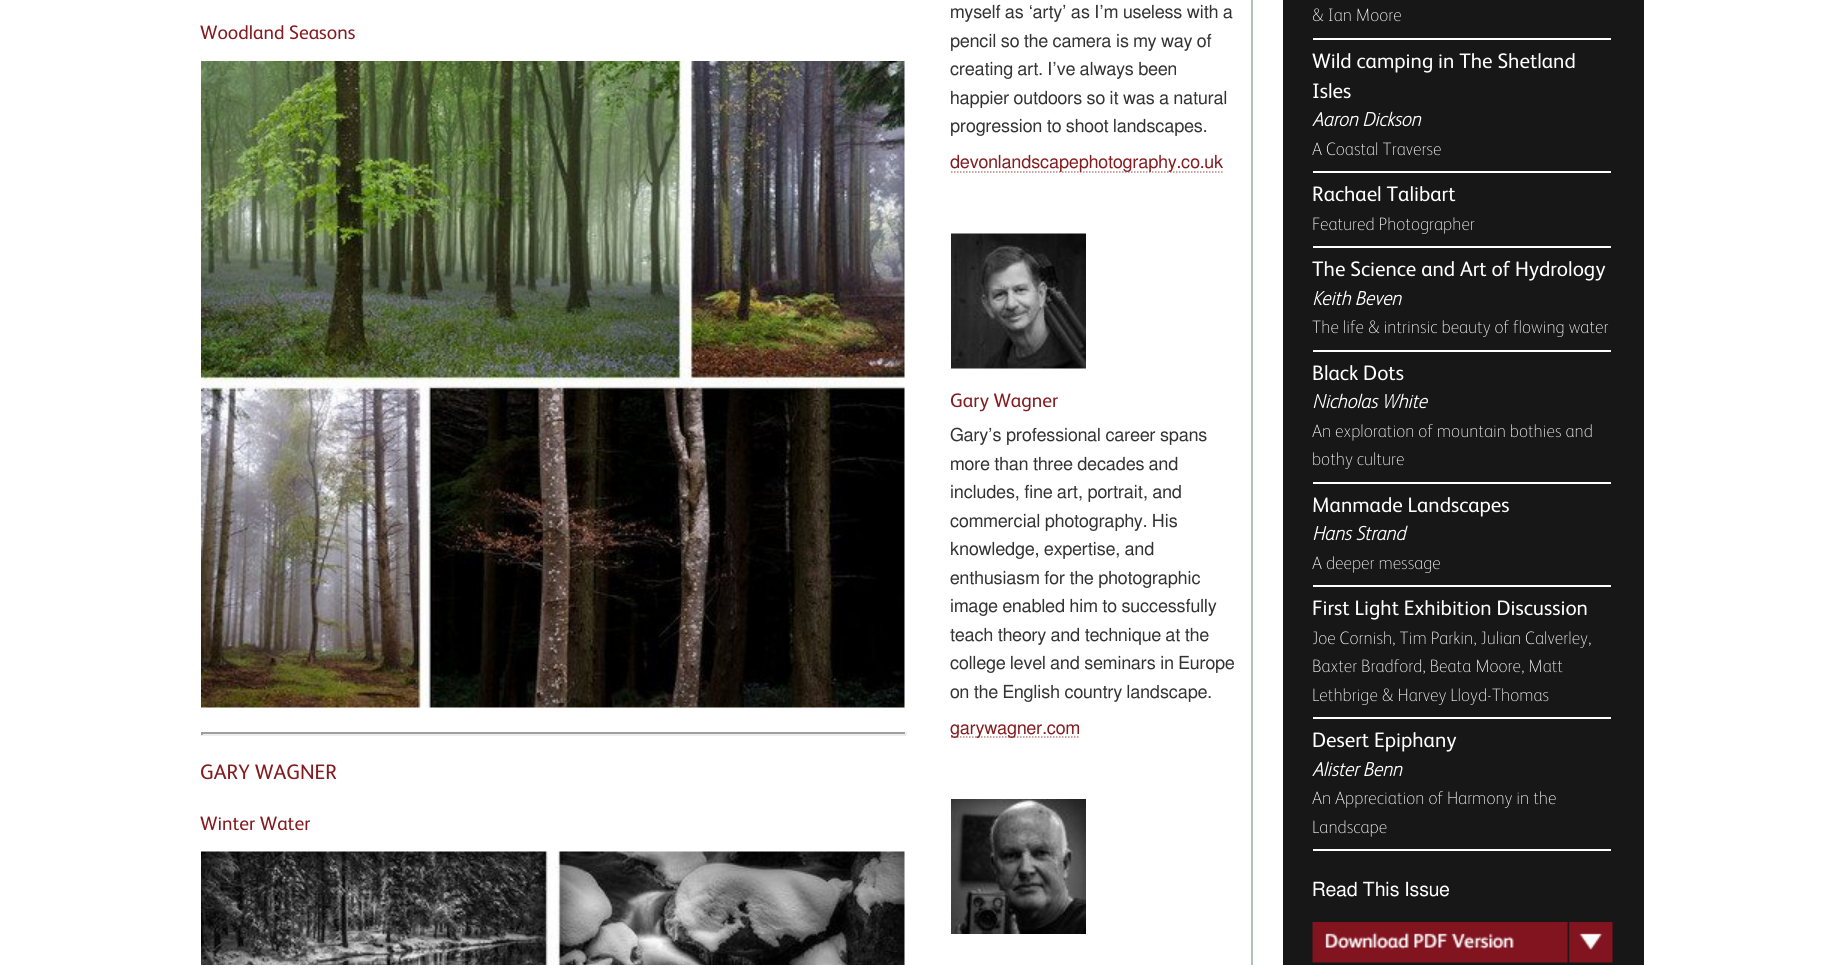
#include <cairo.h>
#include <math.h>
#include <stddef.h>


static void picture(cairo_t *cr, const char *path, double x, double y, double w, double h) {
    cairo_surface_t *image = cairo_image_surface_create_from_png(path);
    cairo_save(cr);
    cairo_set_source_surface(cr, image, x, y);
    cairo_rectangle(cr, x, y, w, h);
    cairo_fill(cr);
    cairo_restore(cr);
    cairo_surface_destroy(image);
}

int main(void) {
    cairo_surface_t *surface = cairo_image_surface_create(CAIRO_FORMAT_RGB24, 1843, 965);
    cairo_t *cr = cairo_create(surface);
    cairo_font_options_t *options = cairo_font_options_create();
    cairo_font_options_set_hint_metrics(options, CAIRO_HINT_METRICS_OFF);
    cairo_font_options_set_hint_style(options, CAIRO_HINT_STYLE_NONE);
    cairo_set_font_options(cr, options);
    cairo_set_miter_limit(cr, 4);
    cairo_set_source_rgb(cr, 1, 1, 1);
    cairo_paint(cr);
    cairo_set_source_rgb(cr, 0.675, 0.769, 0.71);
    cairo_rectangle(cr, 1251, 0, 2, 965);
    cairo_fill(cr);
    cairo_select_font_face(cr, "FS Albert", CAIRO_FONT_SLANT_NORMAL, CAIRO_FONT_WEIGHT_NORMAL);
    cairo_set_font_size(cr, 19.5);
    cairo_set_source_rgb(cr, 0.514, 0.11, 0.122);
    cairo_move_to(cr, 200, 39);
    cairo_show_text(cr, "Woodland Seasons");
    cairo_select_font_face(cr, "FreeSans", CAIRO_FONT_SLANT_NORMAL, CAIRO_FONT_WEIGHT_NORMAL);
    cairo_set_font_size(cr, 18);
    cairo_set_source_rgb(cr, 0.2, 0.2, 0.2);
    cairo_move_to(cr, 950, 18);
    cairo_show_text(cr, "myself as ‘arty’ as I’m useless with a");
    cairo_move_to(cr, 950, 47);
    cairo_show_text(cr, "pencil so the camera is my way of");
    cairo_move_to(cr, 950, 75);
    cairo_show_text(cr, "creating art. I’ve always been");
    cairo_move_to(cr, 950, 104);
    cairo_show_text(cr, "happier outdoors so it was a natural");
    cairo_move_to(cr, 950, 132);
    cairo_show_text(cr, "progression to shoot landscapes.");
    cairo_new_path(cr);
    cairo_move_to(cr, 951, 172);
    cairo_line_to(cr, 1224, 172);
    cairo_set_source_rgb(cr, 0.741, 0.506, 0.514);
    cairo_set_line_width(cr, 1.5);
    cairo_set_dash(cr, (double[]){1.5, 1.5}, 2, 0);
    cairo_stroke(cr);
    cairo_set_source_rgb(cr, 0.514, 0.11, 0.122);
    cairo_move_to(cr, 950, 168);
    cairo_show_text(cr, "devonlandscapephotography.co.uk");
    picture(cr, "img1.png", 951, 233, 135, 136);
    cairo_select_font_face(cr, "FS Albert", CAIRO_FONT_SLANT_NORMAL, CAIRO_FONT_WEIGHT_NORMAL);
    cairo_set_font_size(cr, 19.5);
    cairo_move_to(cr, 950, 407);
    cairo_show_text(cr, "Gary Wagner");
    cairo_select_font_face(cr, "FreeSans", CAIRO_FONT_SLANT_NORMAL, CAIRO_FONT_WEIGHT_NORMAL);
    cairo_set_font_size(cr, 18);
    cairo_set_source_rgb(cr, 0.2, 0.2, 0.2);
    cairo_move_to(cr, 950, 441);
    cairo_show_text(cr, "Gary’s professional career spans");
    cairo_move_to(cr, 950, 470);
    cairo_show_text(cr, "more than three decades and");
    cairo_move_to(cr, 950, 498);
    cairo_show_text(cr, "includes, fine art, portrait, and");
    cairo_move_to(cr, 950, 527);
    cairo_show_text(cr, "commercial photography. His");
    cairo_move_to(cr, 950, 555);
    cairo_show_text(cr, "knowledge, expertise, and");
    cairo_move_to(cr, 950, 584);
    cairo_show_text(cr, "enthusiasm for the photographic");
    cairo_move_to(cr, 950, 612);
    cairo_show_text(cr, "image enabled him to successfully");
    cairo_move_to(cr, 950, 641);
    cairo_show_text(cr, "teach theory and technique at the");
    cairo_move_to(cr, 950, 669);
    cairo_show_text(cr, "college level and seminars in Europe");
    cairo_move_to(cr, 950, 698);
    cairo_show_text(cr, "on the English country landscape.");
    cairo_new_path(cr);
    cairo_move_to(cr, 951, 737);
    cairo_line_to(cr, 1080, 737);
    cairo_set_source_rgb(cr, 0.741, 0.506, 0.514);
    cairo_stroke(cr);
    cairo_set_source_rgb(cr, 0.514, 0.11, 0.122);
    cairo_move_to(cr, 950, 734);
    cairo_show_text(cr, "garywagner.com");
    picture(cr, "img2.png", 951, 799, 135, 135);
    picture(cr, "img3.png", 201, 61, 704, 647);
    cairo_set_source_rgb(cr, 0.624, 0.624, 0.624);
    cairo_rectangle(cr, 201, 732, 705, 2);
    cairo_fill(cr);
    cairo_set_source_rgb(cr, 0.933, 0.933, 0.933);
    cairo_rectangle(cr, 905, 732, 2, 3);
    cairo_fill(cr);
    cairo_rectangle(cr, 201, 734, 705, 2);
    cairo_fill(cr);
    cairo_set_source_rgb(cr, 0.624, 0.624, 0.624);
    cairo_rectangle(cr, 201, 732, 2, 3);
    cairo_fill(cr);
    cairo_select_font_face(cr, "FS Albert", CAIRO_FONT_SLANT_NORMAL, CAIRO_FONT_WEIGHT_NORMAL);
    cairo_set_font_size(cr, 21);
    cairo_set_source_rgb(cr, 0.514, 0.11, 0.122);
    cairo_move_to(cr, 200, 779);
    cairo_show_text(cr, "GARY WAGNER");
    cairo_set_font_size(cr, 19.5);
    cairo_move_to(cr, 200, 830);
    cairo_show_text(cr, "Winter Water");
    picture(cr, "img4.png", 201, 851, 704, 114);
    cairo_set_source_rgb(cr, 0.09, 0.09, 0.09);
    cairo_rectangle(cr, 1283, 0, 361, 965);
    cairo_fill(cr);
    cairo_set_source_rgb(cr, 1, 1, 1);
    cairo_rectangle(cr, 1313, 38, 298, 2);
    cairo_fill(cr);
    cairo_select_font_face(cr, "FS Albert Thin", CAIRO_FONT_SLANT_NORMAL, CAIRO_FONT_WEIGHT_NORMAL);
    cairo_set_font_size(cr, 18);
    cairo_move_to(cr, 1312, 21);
    cairo_show_text(cr, "& Ian Moore");
    cairo_rectangle(cr, 1313, 171, 298, 2);
    cairo_fill(cr);
    cairo_select_font_face(cr, "FS Albert", CAIRO_FONT_SLANT_NORMAL, CAIRO_FONT_WEIGHT_NORMAL);
    cairo_set_font_size(cr, 21);
    cairo_move_to(cr, 1312, 68);
    cairo_show_text(cr, "Wild camping in The Shetland");
    cairo_move_to(cr, 1312, 98);
    cairo_show_text(cr, "Isles");
    cairo_select_font_face(cr, "FS Albert", CAIRO_FONT_SLANT_ITALIC, CAIRO_FONT_WEIGHT_BOLD);
    cairo_set_font_size(cr, 19.5);
    cairo_move_to(cr, 1312, 126);
    cairo_show_text(cr, "Aaron Dickson");
    cairo_select_font_face(cr, "FS Albert Thin", CAIRO_FONT_SLANT_NORMAL, CAIRO_FONT_WEIGHT_NORMAL);
    cairo_set_font_size(cr, 18);
    cairo_move_to(cr, 1312, 155);
    cairo_show_text(cr, "A Coastal Traverse");
    cairo_rectangle(cr, 1313, 246, 298, 2);
    cairo_fill(cr);
    cairo_select_font_face(cr, "FS Albert", CAIRO_FONT_SLANT_NORMAL, CAIRO_FONT_WEIGHT_NORMAL);
    cairo_set_font_size(cr, 21);
    cairo_move_to(cr, 1312, 201);
    cairo_show_text(cr, "Rachael Talibart");
    cairo_select_font_face(cr, "FS Albert Thin", CAIRO_FONT_SLANT_NORMAL, CAIRO_FONT_WEIGHT_NORMAL);
    cairo_set_font_size(cr, 18);
    cairo_move_to(cr, 1312, 230);
    cairo_show_text(cr, "Featured Photographer");
    cairo_rectangle(cr, 1313, 350, 298, 2);
    cairo_fill(cr);
    cairo_select_font_face(cr, "FS Albert", CAIRO_FONT_SLANT_NORMAL, CAIRO_FONT_WEIGHT_NORMAL);
    cairo_set_font_size(cr, 21);
    cairo_move_to(cr, 1312, 276);
    cairo_show_text(cr, "The Science and Art of Hydrology");
    cairo_select_font_face(cr, "FS Albert", CAIRO_FONT_SLANT_ITALIC, CAIRO_FONT_WEIGHT_BOLD);
    cairo_set_font_size(cr, 19.5);
    cairo_move_to(cr, 1312, 305);
    cairo_show_text(cr, "Keith Beven");
    cairo_select_font_face(cr, "FS Albert Thin", CAIRO_FONT_SLANT_NORMAL, CAIRO_FONT_WEIGHT_NORMAL);
    cairo_set_font_size(cr, 18);
    cairo_move_to(cr, 1312, 333);
    cairo_show_text(cr, "The life & intrinsic beauty of flowing water");
    cairo_rectangle(cr, 1313, 482, 298, 2);
    cairo_fill(cr);
    cairo_select_font_face(cr, "FS Albert", CAIRO_FONT_SLANT_NORMAL, CAIRO_FONT_WEIGHT_NORMAL);
    cairo_set_font_size(cr, 21);
    cairo_move_to(cr, 1312, 380);
    cairo_show_text(cr, "Black Dots");
    cairo_select_font_face(cr, "FS Albert", CAIRO_FONT_SLANT_ITALIC, CAIRO_FONT_WEIGHT_BOLD);
    cairo_set_font_size(cr, 19.5);
    cairo_move_to(cr, 1312, 408);
    cairo_show_text(cr, "Nicholas White");
    cairo_select_font_face(cr, "FS Albert Thin", CAIRO_FONT_SLANT_NORMAL, CAIRO_FONT_WEIGHT_NORMAL);
    cairo_set_font_size(cr, 18);
    cairo_move_to(cr, 1312, 437);
    cairo_show_text(cr, "An exploration of mountain bothies and");
    cairo_move_to(cr, 1312, 465);
    cairo_show_text(cr, "bothy culture");
    cairo_rectangle(cr, 1313, 585, 298, 2);
    cairo_fill(cr);
    cairo_select_font_face(cr, "FS Albert", CAIRO_FONT_SLANT_NORMAL, CAIRO_FONT_WEIGHT_NORMAL);
    cairo_set_font_size(cr, 21);
    cairo_move_to(cr, 1312, 512);
    cairo_show_text(cr, "Manmade Landscapes");
    cairo_select_font_face(cr, "FS Albert", CAIRO_FONT_SLANT_ITALIC, CAIRO_FONT_WEIGHT_BOLD);
    cairo_set_font_size(cr, 19.5);
    cairo_move_to(cr, 1312, 540);
    cairo_show_text(cr, "Hans Strand");
    cairo_select_font_face(cr, "FS Albert Thin", CAIRO_FONT_SLANT_NORMAL, CAIRO_FONT_WEIGHT_NORMAL);
    cairo_set_font_size(cr, 18);
    cairo_move_to(cr, 1312, 569);
    cairo_show_text(cr, "A deeper message");
    cairo_rectangle(cr, 1313, 717, 298, 2);
    cairo_fill(cr);
    cairo_select_font_face(cr, "FS Albert", CAIRO_FONT_SLANT_NORMAL, CAIRO_FONT_WEIGHT_NORMAL);
    cairo_set_font_size(cr, 21);
    cairo_move_to(cr, 1312, 615);
    cairo_show_text(cr, "First Light Exhibition Discussion");
    cairo_select_font_face(cr, "FS Albert Thin", CAIRO_FONT_SLANT_NORMAL, CAIRO_FONT_WEIGHT_NORMAL);
    cairo_set_font_size(cr, 18);
    cairo_move_to(cr, 1312, 644);
    cairo_show_text(cr, "Joe Cornish, Tim Parkin, Julian Calverley,");
    cairo_move_to(cr, 1312, 672);
    cairo_show_text(cr, "Baxter Bradford, Beata Moore, Matt");
    cairo_move_to(cr, 1312, 701);
    cairo_show_text(cr, "Lethbrige & Harvey Lloyd-Thomas");
    cairo_rectangle(cr, 1313, 849, 298, 2);
    cairo_fill(cr);
    cairo_select_font_face(cr, "FS Albert", CAIRO_FONT_SLANT_NORMAL, CAIRO_FONT_WEIGHT_NORMAL);
    cairo_set_font_size(cr, 21);
    cairo_move_to(cr, 1312, 747);
    cairo_show_text(cr, "Desert Epiphany");
    cairo_select_font_face(cr, "FS Albert", CAIRO_FONT_SLANT_ITALIC, CAIRO_FONT_WEIGHT_BOLD);
    cairo_set_font_size(cr, 19.5);
    cairo_move_to(cr, 1312, 776);
    cairo_show_text(cr, "Alister Benn");
    cairo_select_font_face(cr, "FS Albert Thin", CAIRO_FONT_SLANT_NORMAL, CAIRO_FONT_WEIGHT_NORMAL);
    cairo_set_font_size(cr, 18);
    cairo_move_to(cr, 1312, 804);
    cairo_show_text(cr, "An Appreciation of Harmony in the");
    cairo_move_to(cr, 1312, 833);
    cairo_show_text(cr, "Landscape");
    cairo_select_font_face(cr, "FreeSans", CAIRO_FONT_SLANT_NORMAL, CAIRO_FONT_WEIGHT_NORMAL);
    cairo_set_font_size(cr, 19.5);
    cairo_move_to(cr, 1312, 896);
    cairo_show_text(cr, "Read This Issue");
    picture(cr, "img5.png", 1312, 922, 301, 41);
    cairo_surface_write_to_png(surface, "page.png");
    cairo_font_options_destroy(options);
    cairo_destroy(cr);
    cairo_surface_destroy(surface);
    return 0;
}
